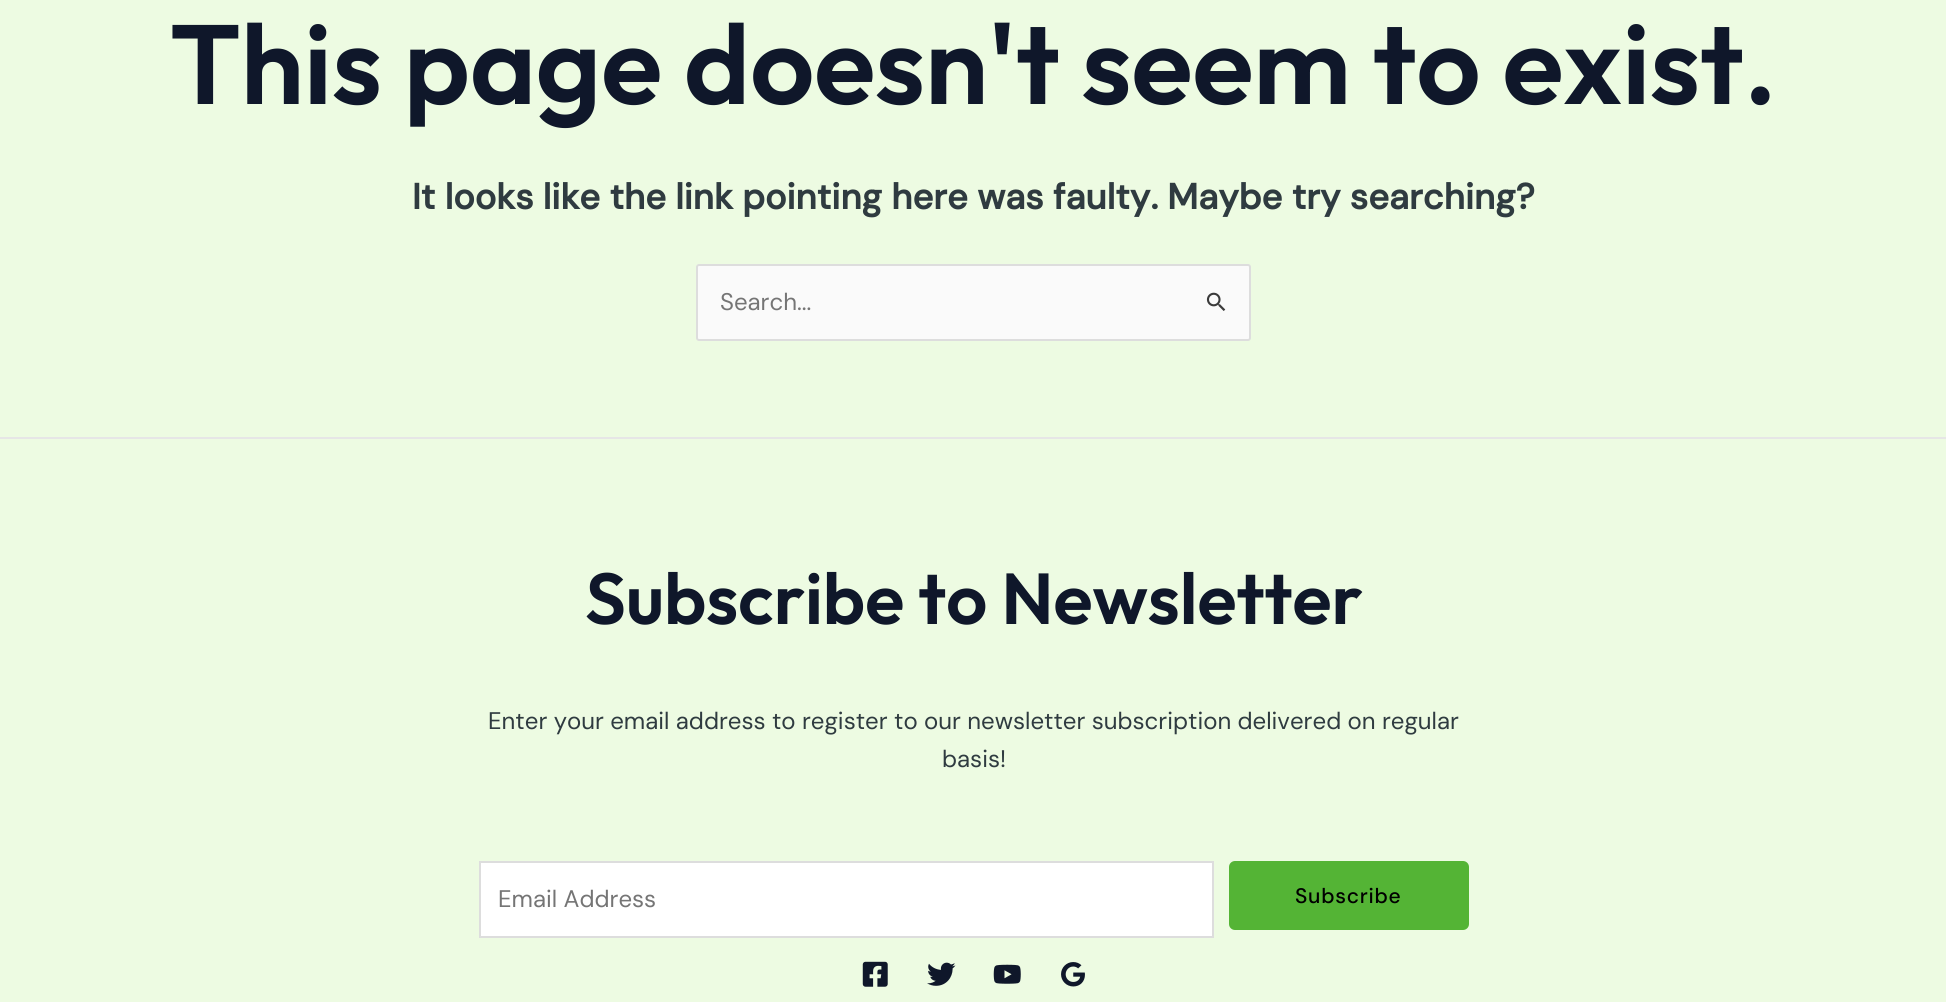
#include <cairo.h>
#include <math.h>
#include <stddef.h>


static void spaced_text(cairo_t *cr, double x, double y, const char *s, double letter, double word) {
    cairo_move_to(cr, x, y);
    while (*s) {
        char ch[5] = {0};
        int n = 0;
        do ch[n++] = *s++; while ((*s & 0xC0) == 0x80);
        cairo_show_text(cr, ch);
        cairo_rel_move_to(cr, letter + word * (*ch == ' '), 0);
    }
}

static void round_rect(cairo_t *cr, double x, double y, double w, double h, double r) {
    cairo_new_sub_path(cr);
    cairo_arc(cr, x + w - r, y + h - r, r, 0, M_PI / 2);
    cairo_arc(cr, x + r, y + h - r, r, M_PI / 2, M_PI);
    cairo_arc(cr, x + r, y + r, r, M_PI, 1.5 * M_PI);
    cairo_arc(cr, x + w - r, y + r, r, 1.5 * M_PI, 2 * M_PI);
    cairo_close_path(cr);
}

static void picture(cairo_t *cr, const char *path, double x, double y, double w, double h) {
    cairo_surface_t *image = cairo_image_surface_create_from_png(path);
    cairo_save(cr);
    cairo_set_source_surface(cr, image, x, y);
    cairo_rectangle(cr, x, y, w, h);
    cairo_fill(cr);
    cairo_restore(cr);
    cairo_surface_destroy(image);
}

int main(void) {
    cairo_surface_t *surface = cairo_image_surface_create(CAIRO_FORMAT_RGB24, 1946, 1002);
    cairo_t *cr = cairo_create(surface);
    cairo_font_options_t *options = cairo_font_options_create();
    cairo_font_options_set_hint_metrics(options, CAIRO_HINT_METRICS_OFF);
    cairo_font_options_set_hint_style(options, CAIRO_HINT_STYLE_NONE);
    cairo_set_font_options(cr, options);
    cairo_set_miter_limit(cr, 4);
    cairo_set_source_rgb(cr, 0.929, 0.984, 0.886);
    cairo_paint(cr);
    cairo_select_font_face(cr, "Outfit Thin", CAIRO_FONT_SLANT_NORMAL, CAIRO_FONT_WEIGHT_NORMAL);
    cairo_set_font_size(cr, 112.5);
    cairo_set_source_rgb(cr, 0.059, 0.09, 0.165);
    cairo_move_to(cr, 170, 104);
    cairo_show_text(cr, "This page doesn't seem to exist.");
    cairo_select_font_face(cr, "DM Sans", CAIRO_FONT_SLANT_NORMAL, CAIRO_FONT_WEIGHT_BOLD);
    cairo_set_font_size(cr, 36);
    cairo_set_source_rgb(cr, 0.184, 0.231, 0.251);
    cairo_move_to(cr, 412, 209);
    cairo_show_text(cr, "It looks like the link pointing here was faulty. Maybe try searching?");
    cairo_set_source_rgb(cr, 0.98, 0.98, 0.98);
    round_rect(cr, 697, 265, 553, 75, 2);
    cairo_fill_preserve(cr);
    cairo_set_source_rgb(cr, 0.867, 0.867, 0.867);
    cairo_stroke(cr);
    cairo_select_font_face(cr, "DM Sans", CAIRO_FONT_SLANT_NORMAL, CAIRO_FONT_WEIGHT_NORMAL);
    cairo_set_font_size(cr, 24);
    cairo_set_source_rgb(cr, 0.459, 0.459, 0.459);
    cairo_move_to(cr, 720, 310);
    cairo_show_text(cr, "Search...");
    picture(cr, "img1.png", 1206, 292, 20, 19);
    cairo_set_source_rgb(cr, 0.902, 0.902, 0.902);
    cairo_rectangle(cr, 0, 437, 1946, 2);
    cairo_fill(cr);
    cairo_select_font_face(cr, "Outfit Thin", CAIRO_FONT_SLANT_NORMAL, CAIRO_FONT_WEIGHT_NORMAL);
    cairo_set_font_size(cr, 72);
    cairo_set_source_rgb(cr, 0.059, 0.09, 0.165);
    cairo_move_to(cr, 585, 624);
    cairo_show_text(cr, "Subscribe to Newsletter");
    cairo_select_font_face(cr, "DM Sans", CAIRO_FONT_SLANT_NORMAL, CAIRO_FONT_WEIGHT_NORMAL);
    cairo_set_font_size(cr, 24);
    cairo_set_source_rgb(cr, 0.184, 0.231, 0.251);
    cairo_move_to(cr, 488, 729);
    cairo_show_text(cr, "Enter your email address to register to our newsletter subscription delivered on regular");
    cairo_move_to(cr, 942, 767);
    cairo_show_text(cr, "basis!");
    cairo_set_source_rgb(cr, 1, 1, 1);
    cairo_rectangle(cr, 480, 862, 733, 75);
    cairo_fill_preserve(cr);
    cairo_set_source_rgb(cr, 0.867, 0.867, 0.867);
    cairo_stroke(cr);
    cairo_set_source_rgb(cr, 0.459, 0.459, 0.459);
    cairo_move_to(cr, 498, 907);
    cairo_show_text(cr, "Email Address");
    cairo_set_source_rgb(cr, 0.329, 0.706, 0.208);
    round_rect(cr, 1229, 861, 240, 69, 6);
    cairo_fill(cr);
    cairo_select_font_face(cr, "DM Sans Medium", CAIRO_FONT_SLANT_NORMAL, CAIRO_FONT_WEIGHT_NORMAL);
    cairo_set_font_size(cr, 21);
    cairo_set_source_rgb(cr, 0, 0, 0);
    spaced_text(cr, 1295, 903, "Subscribe", 0.75, 0);
    picture(cr, "img2.png", 862, 961, 26, 26);
    picture(cr, "img3.png", 927, 962, 29, 24);
    picture(cr, "img4.png", 993, 964, 28, 20);
    picture(cr, "img5.png", 1061, 962, 24, 25);
    cairo_surface_write_to_png(surface, "page.png");
    cairo_font_options_destroy(options);
    cairo_destroy(cr);
    cairo_surface_destroy(surface);
    return 0;
}
